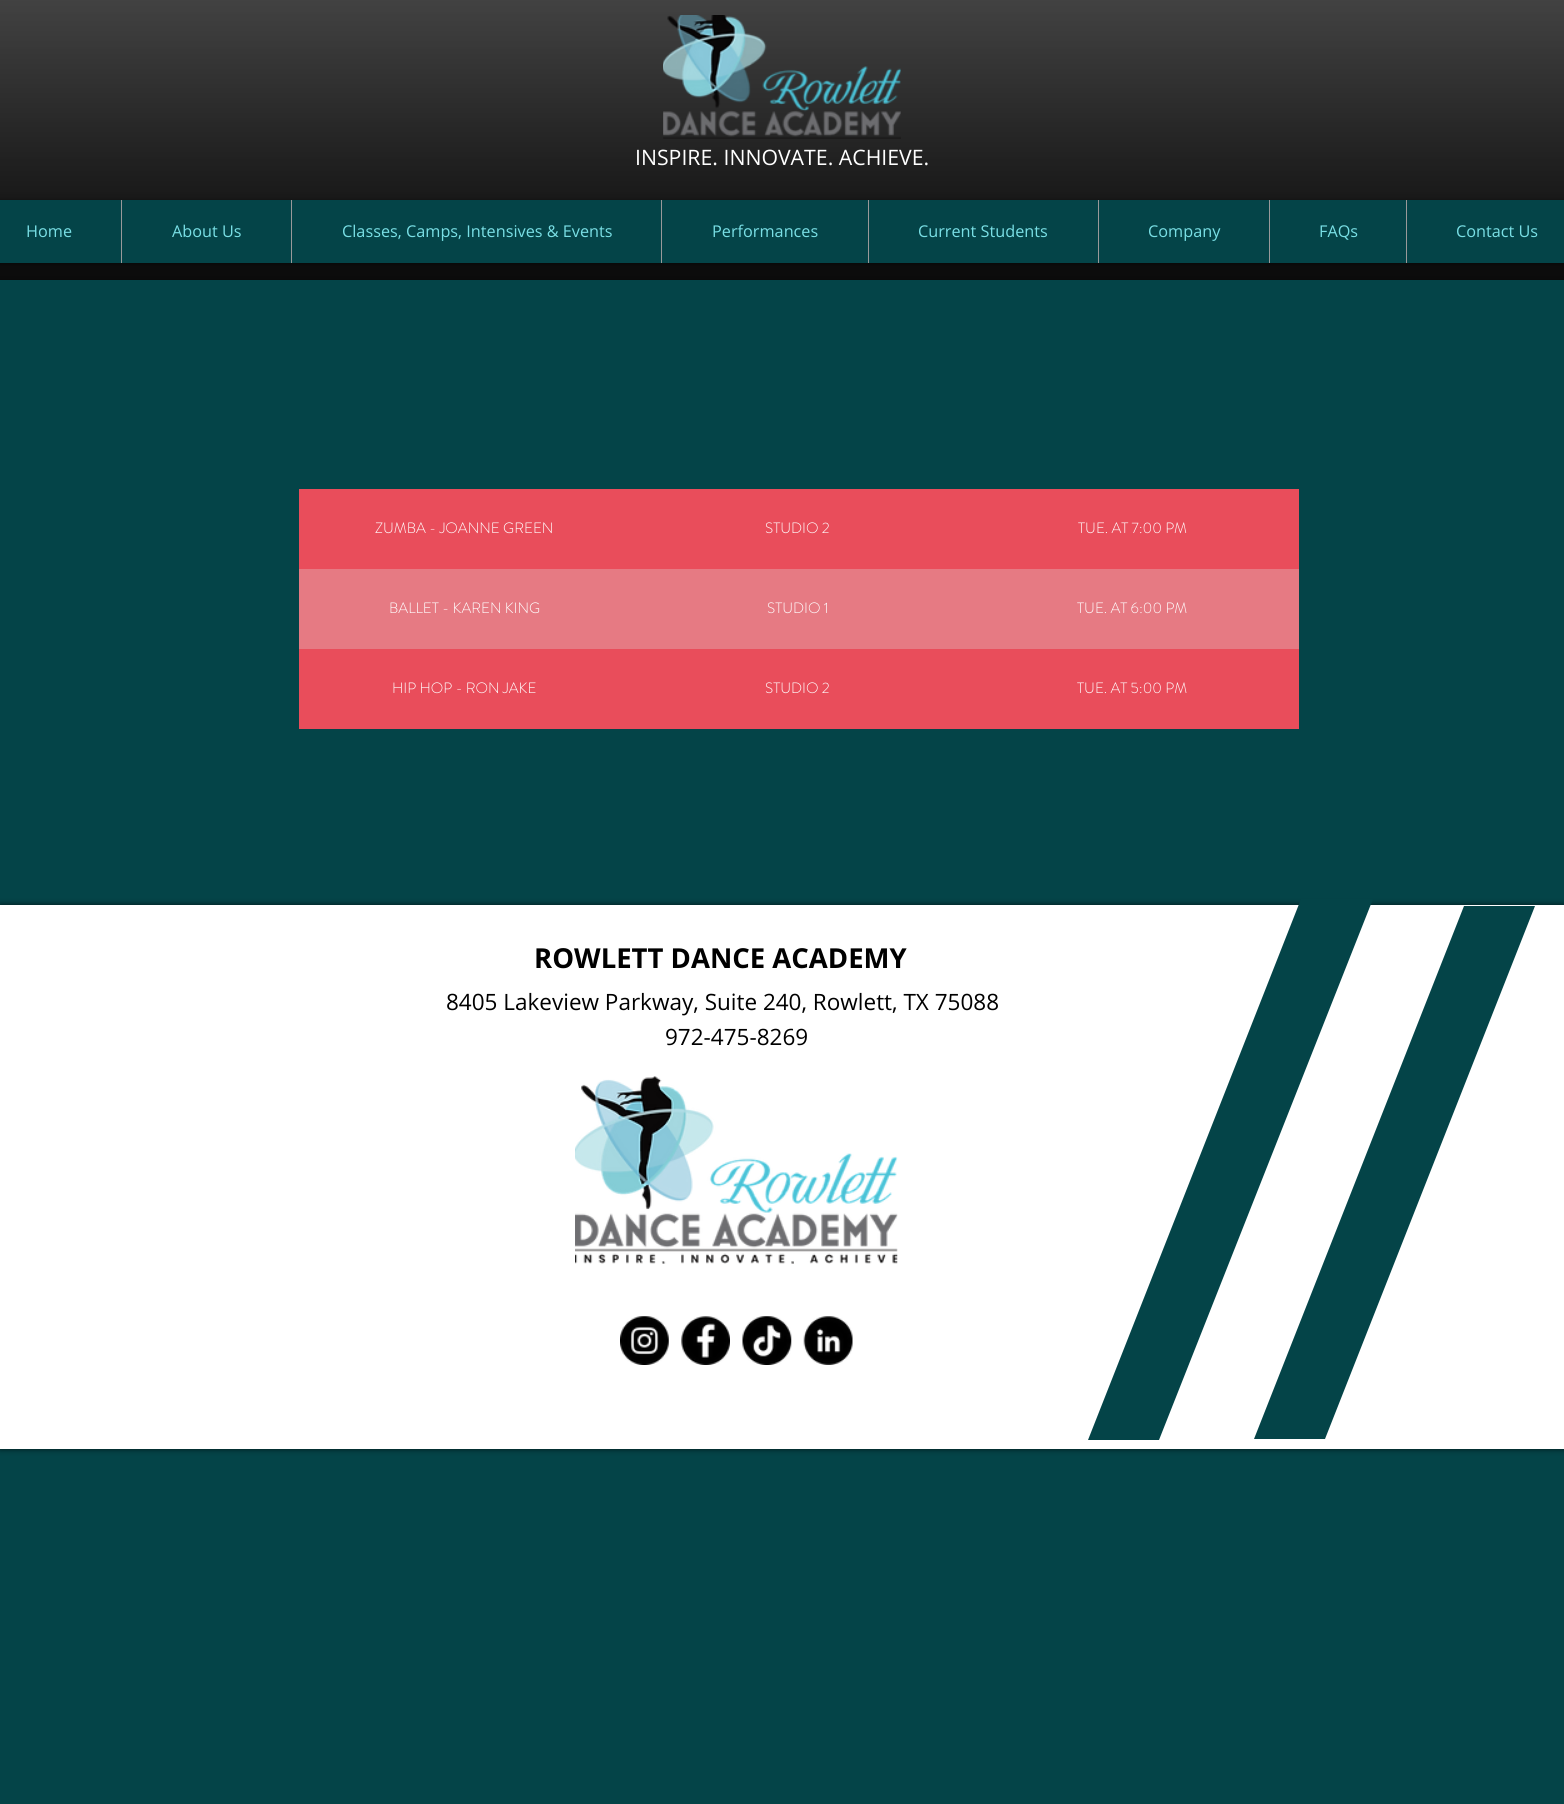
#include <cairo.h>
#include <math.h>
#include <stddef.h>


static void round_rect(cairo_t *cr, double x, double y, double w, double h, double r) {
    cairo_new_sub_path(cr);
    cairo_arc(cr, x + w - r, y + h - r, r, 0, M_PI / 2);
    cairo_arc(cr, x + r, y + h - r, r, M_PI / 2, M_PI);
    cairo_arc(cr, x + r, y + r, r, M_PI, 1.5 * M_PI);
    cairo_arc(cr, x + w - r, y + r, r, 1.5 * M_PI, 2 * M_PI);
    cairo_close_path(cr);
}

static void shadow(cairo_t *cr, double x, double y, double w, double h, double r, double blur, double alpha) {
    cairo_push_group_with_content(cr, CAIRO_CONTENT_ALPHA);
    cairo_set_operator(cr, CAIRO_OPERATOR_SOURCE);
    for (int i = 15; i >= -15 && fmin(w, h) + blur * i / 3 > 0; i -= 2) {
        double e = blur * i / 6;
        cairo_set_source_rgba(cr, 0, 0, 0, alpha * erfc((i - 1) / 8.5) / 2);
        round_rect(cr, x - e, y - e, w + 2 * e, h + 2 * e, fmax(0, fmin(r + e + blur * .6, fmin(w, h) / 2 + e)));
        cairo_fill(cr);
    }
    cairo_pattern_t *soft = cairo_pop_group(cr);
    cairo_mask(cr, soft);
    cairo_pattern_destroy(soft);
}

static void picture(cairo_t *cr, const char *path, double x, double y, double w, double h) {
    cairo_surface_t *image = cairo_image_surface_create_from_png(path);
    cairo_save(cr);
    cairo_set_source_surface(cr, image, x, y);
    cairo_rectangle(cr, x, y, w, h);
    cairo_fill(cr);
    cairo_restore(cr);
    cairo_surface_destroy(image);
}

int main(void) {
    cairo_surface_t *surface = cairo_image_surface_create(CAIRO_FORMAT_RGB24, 1564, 1804);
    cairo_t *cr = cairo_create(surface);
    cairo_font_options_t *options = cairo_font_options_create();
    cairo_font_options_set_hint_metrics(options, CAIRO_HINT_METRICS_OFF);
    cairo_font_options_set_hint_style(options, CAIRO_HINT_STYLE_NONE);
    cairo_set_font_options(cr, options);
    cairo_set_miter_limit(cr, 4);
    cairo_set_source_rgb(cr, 0.016, 0.267, 0.282);
    cairo_paint(cr);
    cairo_set_source_rgb(cr, 0, 0, 0);
    cairo_rectangle(cr, 0, 0, 1564, 280);
    cairo_fill(cr);
    picture(cr, "img1.png", 0, 0, 1564, 280);
    picture(cr, "img2.png", 663, 15, 238, 124);
    cairo_select_font_face(cr, "Open Sans", CAIRO_FONT_SLANT_NORMAL, CAIRO_FONT_WEIGHT_NORMAL);
    cairo_set_font_size(cr, 21.25);
    cairo_set_source_rgb(cr, 1, 1, 1);
    cairo_move_to(cr, 635, 165);
    cairo_show_text(cr, "INSPIRE. INNOVATE. ACHIEVE.");
    cairo_set_source_rgb(cr, 0, 0, 0);
    shadow(cr, -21, 201, 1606, 63, 13, 2.5, 0.6);
    cairo_set_source_rgb(cr, 0.016, 0.267, 0.282);
    cairo_rectangle(cr, 0, 200, 1564, 63);
    cairo_fill(cr);
    cairo_set_font_size(cr, 16.25);
    cairo_set_source_rgb(cr, 0.475, 0.875, 0.898);
    cairo_move_to(cr, 26, 237);
    cairo_show_text(cr, "Home");
    cairo_set_source_rgb(cr, 0.6, 0.6, 0.6);
    cairo_rectangle(cr, 121, 200, 1, 63);
    cairo_fill(cr);
    cairo_set_source_rgb(cr, 0.475, 0.875, 0.898);
    cairo_move_to(cr, 172, 237);
    cairo_show_text(cr, "About Us");
    cairo_set_source_rgb(cr, 0.6, 0.6, 0.6);
    cairo_rectangle(cr, 291, 200, 1, 63);
    cairo_fill(cr);
    cairo_set_source_rgb(cr, 0.475, 0.875, 0.898);
    cairo_move_to(cr, 342, 237);
    cairo_show_text(cr, "Classes, Camps, Intensives & Events");
    cairo_set_source_rgb(cr, 0.6, 0.6, 0.6);
    cairo_rectangle(cr, 661, 200, 1, 63);
    cairo_fill(cr);
    cairo_set_source_rgb(cr, 0.475, 0.875, 0.898);
    cairo_move_to(cr, 712, 237);
    cairo_show_text(cr, "Performances");
    cairo_set_source_rgb(cr, 0.6, 0.6, 0.6);
    cairo_rectangle(cr, 868, 200, 1, 63);
    cairo_fill(cr);
    cairo_set_source_rgb(cr, 0.475, 0.875, 0.898);
    cairo_move_to(cr, 918, 237);
    cairo_show_text(cr, "Current Students");
    cairo_set_source_rgb(cr, 0.6, 0.6, 0.6);
    cairo_rectangle(cr, 1098, 200, 1, 63);
    cairo_fill(cr);
    cairo_set_source_rgb(cr, 0.475, 0.875, 0.898);
    cairo_move_to(cr, 1148, 237);
    cairo_show_text(cr, "Company");
    cairo_set_source_rgb(cr, 0.6, 0.6, 0.6);
    cairo_rectangle(cr, 1269, 200, 1, 63);
    cairo_fill(cr);
    cairo_set_source_rgb(cr, 0.475, 0.875, 0.898);
    cairo_move_to(cr, 1319, 237);
    cairo_show_text(cr, "FAQs");
    cairo_set_source_rgb(cr, 0.6, 0.6, 0.6);
    cairo_rectangle(cr, 1406, 200, 1, 63);
    cairo_fill(cr);
    cairo_set_source_rgb(cr, 0.475, 0.875, 0.898);
    cairo_move_to(cr, 1456, 237);
    cairo_show_text(cr, "Contact Us");
    cairo_set_source_rgb(cr, 0.902, 0.478, 0.514);
    cairo_rectangle(cr, 299, 569, 1000, 80);
    cairo_fill(cr);
    cairo_set_source_rgb(cr, 0.914, 0.302, 0.357);
    cairo_rectangle(cr, 299, 489, 1000, 80);
    cairo_fill(cr);
    cairo_select_font_face(cr, "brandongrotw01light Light", CAIRO_FONT_SLANT_NORMAL, CAIRO_FONT_WEIGHT_NORMAL);
    cairo_set_font_size(cr, 15);
    cairo_set_source_rgb(cr, 1, 1, 1);
    cairo_move_to(cr, 375, 533);
    cairo_show_text(cr, "ZUMBA - JOANNE GREEN");
    cairo_move_to(cr, 765, 533);
    cairo_show_text(cr, "STUDIO 2");
    cairo_move_to(cr, 1078, 533);
    cairo_show_text(cr, "TUE. AT 7:00 PM");
    cairo_move_to(cr, 389, 613);
    cairo_show_text(cr, "BALLET - KAREN KING");
    cairo_move_to(cr, 767, 613);
    cairo_show_text(cr, "STUDIO 1");
    cairo_move_to(cr, 1077, 613);
    cairo_show_text(cr, "TUE. AT 6:00 PM");
    cairo_set_source_rgb(cr, 0.914, 0.302, 0.357);
    cairo_rectangle(cr, 299, 649, 1000, 80);
    cairo_fill(cr);
    cairo_set_source_rgb(cr, 1, 1, 1);
    cairo_move_to(cr, 392, 693);
    cairo_show_text(cr, "HIP HOP - RON JAKE");
    cairo_move_to(cr, 765, 693);
    cairo_show_text(cr, "STUDIO 2");
    cairo_move_to(cr, 1077, 693);
    cairo_show_text(cr, "TUE. AT 5:00 PM");
    cairo_set_source_rgb(cr, 0, 0, 0);
    shadow(cr, 0, 905, 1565, 544, 0, 3, 0.7);
    cairo_set_source_rgb(cr, 1, 1, 1);
    cairo_rectangle(cr, 0, 905, 1564, 544);
    cairo_fill(cr);
    cairo_select_font_face(cr, "Open Sans", CAIRO_FONT_SLANT_NORMAL, CAIRO_FONT_WEIGHT_BOLD);
    cairo_set_font_size(cr, 27.5);
    cairo_set_source_rgb(cr, 0, 0, 0);
    cairo_move_to(cr, 534, 968);
    cairo_show_text(cr, "ROWLETT DANCE ACADEMY");
    cairo_select_font_face(cr, "Open Sans", CAIRO_FONT_SLANT_NORMAL, CAIRO_FONT_WEIGHT_NORMAL);
    cairo_set_font_size(cr, 22.5);
    cairo_move_to(cr, 446, 1010);
    cairo_show_text(cr, "8405 Lakeview Parkway, Suite 240, Rowlett, TX 75088");
    cairo_move_to(cr, 665, 1045);
    cairo_show_text(cr, "972-475-8269");
    cairo_set_source_rgb(cr, 0.016, 0.267, 0.282);
    cairo_set_fill_rule(cr, CAIRO_FILL_RULE_EVEN_ODD);
    cairo_new_path(cr);
    cairo_move_to(cr, 1159, 1440);
    cairo_line_to(cr, 1088, 1440);
    cairo_line_to(cr, 1301, 899);
    cairo_line_to(cr, 1373, 899);
    cairo_close_path(cr);
    cairo_fill(cr);
    cairo_new_path(cr);
    cairo_move_to(cr, 1325, 1439);
    cairo_line_to(cr, 1254, 1439);
    cairo_line_to(cr, 1464, 906);
    cairo_line_to(cr, 1535, 906);
    cairo_close_path(cr);
    cairo_fill(cr);
    picture(cr, "img3.png", 575, 1076, 323, 188);
    picture(cr, "img4.png", 620, 1316, 49, 49);
    picture(cr, "img5.png", 681, 1316, 49, 49);
    picture(cr, "img6.png", 742, 1316, 50, 49);
    picture(cr, "img7.png", 803, 1316, 50, 49);
    cairo_surface_write_to_png(surface, "page.png");
    cairo_font_options_destroy(options);
    cairo_destroy(cr);
    cairo_surface_destroy(surface);
    return 0;
}
